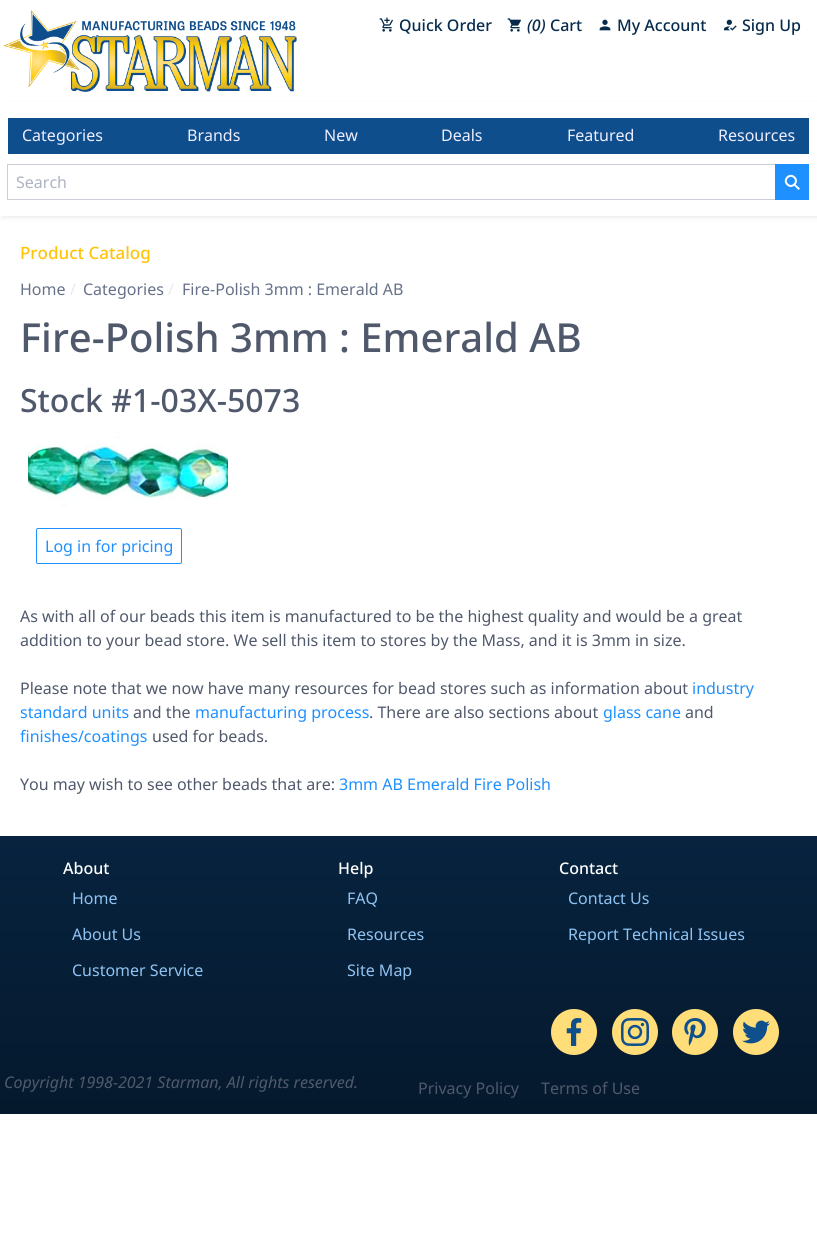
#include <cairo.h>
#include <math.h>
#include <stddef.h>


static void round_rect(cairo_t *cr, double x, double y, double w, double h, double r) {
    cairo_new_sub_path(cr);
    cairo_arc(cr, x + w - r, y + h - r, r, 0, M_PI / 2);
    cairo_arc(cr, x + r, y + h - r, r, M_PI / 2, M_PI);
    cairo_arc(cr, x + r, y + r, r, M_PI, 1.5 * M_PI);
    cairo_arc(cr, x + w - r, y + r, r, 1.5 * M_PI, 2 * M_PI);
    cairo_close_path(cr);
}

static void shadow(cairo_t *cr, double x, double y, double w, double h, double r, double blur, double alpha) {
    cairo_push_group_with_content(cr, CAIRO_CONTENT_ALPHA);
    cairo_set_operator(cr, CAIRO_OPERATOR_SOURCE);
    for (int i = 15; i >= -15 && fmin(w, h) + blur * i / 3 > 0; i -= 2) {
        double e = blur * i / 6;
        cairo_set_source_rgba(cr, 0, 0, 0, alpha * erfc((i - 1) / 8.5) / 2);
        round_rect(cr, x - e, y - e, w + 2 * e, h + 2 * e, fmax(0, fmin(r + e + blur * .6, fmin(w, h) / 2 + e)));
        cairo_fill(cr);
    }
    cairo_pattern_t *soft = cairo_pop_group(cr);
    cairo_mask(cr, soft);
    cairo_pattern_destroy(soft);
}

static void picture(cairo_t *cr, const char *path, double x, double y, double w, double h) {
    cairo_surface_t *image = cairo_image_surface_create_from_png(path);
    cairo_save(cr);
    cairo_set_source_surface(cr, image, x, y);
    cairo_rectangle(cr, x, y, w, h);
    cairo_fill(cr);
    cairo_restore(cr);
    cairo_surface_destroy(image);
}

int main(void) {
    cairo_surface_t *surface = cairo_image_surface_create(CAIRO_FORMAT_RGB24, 817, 1241);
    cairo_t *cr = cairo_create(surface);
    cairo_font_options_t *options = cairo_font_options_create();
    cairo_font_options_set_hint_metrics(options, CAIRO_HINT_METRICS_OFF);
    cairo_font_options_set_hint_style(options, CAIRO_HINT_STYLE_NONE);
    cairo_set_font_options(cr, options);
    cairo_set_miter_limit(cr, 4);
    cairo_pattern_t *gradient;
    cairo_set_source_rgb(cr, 1, 1, 1);
    cairo_paint(cr);
    picture(cr, "img1.png", 3, 10, 294, 82);
    picture(cr, "img2.png", 379, 17, 14, 15);
    cairo_select_font_face(cr, "Noto Sans Medium", CAIRO_FONT_SLANT_NORMAL, CAIRO_FONT_WEIGHT_NORMAL);
    cairo_set_font_size(cr, 16);
    cairo_set_source_rgb(cr, 0.031, 0.169, 0.298);
    cairo_move_to(cr, 399, 31);
    cairo_show_text(cr, "Quick Order");
    picture(cr, "img3.png", 507, 18, 14, 14);
    cairo_select_font_face(cr, "Noto Sans Medium", CAIRO_FONT_SLANT_ITALIC, CAIRO_FONT_WEIGHT_NORMAL);
    cairo_move_to(cr, 527, 31);
    cairo_show_text(cr, "(0)");
    cairo_select_font_face(cr, "Noto Sans Medium", CAIRO_FONT_SLANT_NORMAL, CAIRO_FONT_WEIGHT_NORMAL);
    cairo_move_to(cr, 550, 31);
    cairo_show_text(cr, "Cart");
    picture(cr, "img4.png", 599, 19, 12, 12);
    cairo_move_to(cr, 617, 31);
    cairo_show_text(cr, "My Account");
    picture(cr, "img5.png", 724, 19, 13, 12);
    cairo_move_to(cr, 742, 31);
    cairo_show_text(cr, "Sign Up");
    cairo_save(cr);
    cairo_set_fill_rule(cr, CAIRO_FILL_RULE_EVEN_ODD);
    cairo_new_path(cr);
    cairo_move_to(cr, 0, 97);
    cairo_line_to(cr, 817, 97);
    cairo_line_to(cr, 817, 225);
    cairo_line_to(cr, 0, 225);
    cairo_close_path(cr);
    cairo_move_to(cr, 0, 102);
    cairo_line_to(cr, 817, 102);
    cairo_line_to(cr, 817, 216);
    cairo_line_to(cr, 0, 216);
    cairo_close_path(cr);
    cairo_clip(cr);
    cairo_set_source_rgb(cr, 0.929, 0.929, 0.929);
    shadow(cr, 2, 104, 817, 114, 0, 2, 1);
    cairo_restore(cr);
    cairo_set_source_rgb(cr, 0.059, 0.306, 0.549);
    cairo_rectangle(cr, 8, 118, 801, 36);
    cairo_fill(cr);
    cairo_select_font_face(cr, "Noto Sans", CAIRO_FONT_SLANT_NORMAL, CAIRO_FONT_WEIGHT_NORMAL);
    cairo_set_source_rgb(cr, 0.933, 0.933, 1);
    cairo_move_to(cr, 22, 141);
    cairo_show_text(cr, "Categories");
    cairo_move_to(cr, 187, 141);
    cairo_show_text(cr, "Brands");
    cairo_move_to(cr, 324, 141);
    cairo_show_text(cr, "New");
    cairo_move_to(cr, 441, 141);
    cairo_show_text(cr, "Deals");
    cairo_move_to(cr, 567, 141);
    cairo_show_text(cr, "Featured");
    cairo_move_to(cr, 718, 141);
    cairo_show_text(cr, "Resources");
    cairo_rectangle(cr, 7.5, 164.5, 768, 35);
    cairo_set_source_rgb(cr, 0.792, 0.808, 0.843);
    cairo_set_line_width(cr, 1);
    cairo_stroke(cr);
    cairo_set_source_rgb(cr, 0.675, 0.702, 0.761);
    cairo_move_to(cr, 16, 188);
    cairo_show_text(cr, "Search");
    cairo_set_source_rgb(cr, 0.118, 0.565, 1);
    cairo_rectangle(cr, 775, 164, 34, 36);
    cairo_fill(cr);
    cairo_new_path(cr);
    cairo_move_to(cr, 794.5, 177.5);
    cairo_curve_to(cr, 799, 182, 792, 189, 787.5, 184.5);
    cairo_curve_to(cr, 782.5, 180, 789.5, 172.5, 794.5, 177.5);
    cairo_close_path(cr);
    cairo_set_source_rgb(cr, 1, 1, 1);
    cairo_set_line_width(cr, 2);
    cairo_stroke(cr);
    cairo_new_path(cr);
    cairo_move_to(cr, 795, 184);
    cairo_line_to(cr, 800, 188.5);
    cairo_line_to(cr, 798.5, 190);
    cairo_line_to(cr, 794, 185.5);
    cairo_close_path(cr);
    cairo_fill(cr);
    cairo_select_font_face(cr, "Noto Sans Medium", CAIRO_FONT_SLANT_NORMAL, CAIRO_FONT_WEIGHT_NORMAL);
    cairo_set_font_size(cr, 17);
    cairo_set_source_rgb(cr, 1, 0.765, 0.035);
    cairo_move_to(cr, 20, 259);
    cairo_show_text(cr, "Product Catalog");
    cairo_select_font_face(cr, "Noto Sans", CAIRO_FONT_SLANT_NORMAL, CAIRO_FONT_WEIGHT_NORMAL);
    cairo_set_font_size(cr, 16);
    cairo_set_source_rgb(cr, 0.4, 0.443, 0.537);
    cairo_move_to(cr, 20, 295);
    cairo_show_text(cr, "Home");
    cairo_set_source_rgb(cr, 0.906, 0.914, 0.929);
    cairo_move_to(cr, 70, 295);
    cairo_show_text(cr, "/");
    cairo_set_source_rgb(cr, 0.4, 0.443, 0.537);
    cairo_move_to(cr, 83, 295);
    cairo_show_text(cr, "Categories");
    cairo_set_source_rgb(cr, 0.906, 0.914, 0.929);
    cairo_move_to(cr, 168, 295);
    cairo_show_text(cr, "/");
    cairo_set_source_rgb(cr, 0.4, 0.443, 0.537);
    cairo_move_to(cr, 182, 295);
    cairo_show_text(cr, "Fire-Polish 3mm : Emerald AB");
    cairo_select_font_face(cr, "Noto Sans Medium", CAIRO_FONT_SLANT_NORMAL, CAIRO_FONT_WEIGHT_NORMAL);
    cairo_set_font_size(cr, 40);
    cairo_set_source_rgb(cr, 0.314, 0.349, 0.424);
    cairo_move_to(cr, 20, 352);
    cairo_show_text(cr, "Fire-Polish 3mm : Emerald AB");
    cairo_set_font_size(cr, 32);
    cairo_move_to(cr, 20, 412);
    cairo_show_text(cr, "Stock #1-03X-5073");
    picture(cr, "img6.png", 28, 436, 200, 70);
    round_rect(cr, 36.5, 528.5, 145, 35, 1.5);
    cairo_set_source_rgb(cr, 0.118, 0.565, 1);
    cairo_set_line_width(cr, 1);
    cairo_stroke(cr);
    cairo_select_font_face(cr, "Noto Sans", CAIRO_FONT_SLANT_NORMAL, CAIRO_FONT_WEIGHT_NORMAL);
    cairo_set_font_size(cr, 16);
    cairo_move_to(cr, 45, 552);
    cairo_show_text(cr, "Log in for pricing");
    cairo_set_source_rgb(cr, 0.314, 0.349, 0.424);
    cairo_move_to(cr, 20, 622);
    cairo_show_text(cr, "As with all of our beads this item is manufactured to be the highest quality and would be a great");
    cairo_move_to(cr, 20, 646);
    cairo_show_text(cr, "addition to your bead store. We sell this item to stores by the Mass, and it is 3mm in size.");
    cairo_move_to(cr, 20, 694);
    cairo_show_text(cr, "Please note that we now have many resources for bead stores such as information about");
    cairo_set_source_rgb(cr, 0.118, 0.565, 1);
    cairo_move_to(cr, 692, 694);
    cairo_show_text(cr, "industry");
    cairo_move_to(cr, 20, 718);
    cairo_show_text(cr, "standard units");
    cairo_set_source_rgb(cr, 0.314, 0.349, 0.424);
    cairo_move_to(cr, 133, 718);
    cairo_show_text(cr, "and the");
    cairo_set_source_rgb(cr, 0.118, 0.565, 1);
    cairo_move_to(cr, 195, 718);
    cairo_show_text(cr, "manufacturing process");
    cairo_set_source_rgb(cr, 0.314, 0.349, 0.424);
    cairo_move_to(cr, 369, 718);
    cairo_show_text(cr, ". There are also sections about");
    cairo_set_source_rgb(cr, 0.118, 0.565, 1);
    cairo_move_to(cr, 603, 718);
    cairo_show_text(cr, "glass cane");
    cairo_set_source_rgb(cr, 0.314, 0.349, 0.424);
    cairo_move_to(cr, 685, 718);
    cairo_show_text(cr, "and");
    cairo_set_source_rgb(cr, 0.118, 0.565, 1);
    cairo_move_to(cr, 20, 742);
    cairo_show_text(cr, "finishes/coatings");
    cairo_set_source_rgb(cr, 0.314, 0.349, 0.424);
    cairo_move_to(cr, 152, 742);
    cairo_show_text(cr, "used for beads.");
    cairo_move_to(cr, 20, 790);
    cairo_show_text(cr, "You may wish to see other beads that are:");
    cairo_set_source_rgb(cr, 0.118, 0.565, 1);
    cairo_move_to(cr, 339, 790);
    cairo_show_text(cr, "3mm AB Emerald Fire Polish");
    gradient = cairo_pattern_create_linear(409, 836, 409, 1114);
    cairo_pattern_add_color_stop_rgba(gradient, 0, 0.027, 0.137, 0.247, 1);
    cairo_pattern_add_color_stop_rgba(gradient, 1, 0.02, 0.098, 0.176, 1);
    cairo_set_source(cr, gradient);
    cairo_pattern_destroy(gradient);
    cairo_rectangle(cr, 0, 836, 817, 278);
    cairo_fill(cr);
    cairo_select_font_face(cr, "Noto Sans Medium", CAIRO_FONT_SLANT_NORMAL, CAIRO_FONT_WEIGHT_NORMAL);
    cairo_set_source_rgb(cr, 1, 1, 1);
    cairo_move_to(cr, 63, 874);
    cairo_show_text(cr, "About");
    cairo_select_font_face(cr, "Noto Sans", CAIRO_FONT_SLANT_NORMAL, CAIRO_FONT_WEIGHT_NORMAL);
    cairo_set_source_rgb(cr, 0.569, 0.765, 0.949);
    cairo_move_to(cr, 72, 904);
    cairo_show_text(cr, "Home");
    cairo_move_to(cr, 72, 940);
    cairo_show_text(cr, "About Us");
    cairo_move_to(cr, 72, 976);
    cairo_show_text(cr, "Customer Service");
    cairo_select_font_face(cr, "Noto Sans Medium", CAIRO_FONT_SLANT_NORMAL, CAIRO_FONT_WEIGHT_NORMAL);
    cairo_set_source_rgb(cr, 1, 1, 1);
    cairo_move_to(cr, 338, 874);
    cairo_show_text(cr, "Help");
    cairo_select_font_face(cr, "Noto Sans", CAIRO_FONT_SLANT_NORMAL, CAIRO_FONT_WEIGHT_NORMAL);
    cairo_set_source_rgb(cr, 0.569, 0.765, 0.949);
    cairo_move_to(cr, 347, 904);
    cairo_show_text(cr, "FAQ");
    cairo_move_to(cr, 347, 940);
    cairo_show_text(cr, "Resources");
    cairo_move_to(cr, 347, 976);
    cairo_show_text(cr, "Site Map");
    cairo_select_font_face(cr, "Noto Sans Medium", CAIRO_FONT_SLANT_NORMAL, CAIRO_FONT_WEIGHT_NORMAL);
    cairo_set_source_rgb(cr, 1, 1, 1);
    cairo_move_to(cr, 559, 874);
    cairo_show_text(cr, "Contact");
    cairo_select_font_face(cr, "Noto Sans", CAIRO_FONT_SLANT_NORMAL, CAIRO_FONT_WEIGHT_NORMAL);
    cairo_set_source_rgb(cr, 0.569, 0.765, 0.949);
    cairo_move_to(cr, 568, 904);
    cairo_show_text(cr, "Contact Us");
    cairo_move_to(cr, 568, 940);
    cairo_show_text(cr, "Report Technical Issues");
    picture(cr, "img7.png", 551, 1009, 46, 46);
    picture(cr, "img8.png", 612, 1009, 46, 46);
    picture(cr, "img9.png", 672, 1009, 46, 46);
    picture(cr, "img10.png", 733, 1009, 46, 46);
    cairo_select_font_face(cr, "Noto Sans", CAIRO_FONT_SLANT_ITALIC, CAIRO_FONT_WEIGHT_NORMAL);
    cairo_set_source_rgb(cr, 0.314, 0.349, 0.424);
    cairo_move_to(cr, 4, 1088);
    cairo_show_text(cr, "Copyright 1998-2021 Starman, All rights reserved.");
    cairo_select_font_face(cr, "Noto Sans", CAIRO_FONT_SLANT_NORMAL, CAIRO_FONT_WEIGHT_NORMAL);
    cairo_move_to(cr, 418, 1094);
    cairo_show_text(cr, "Privacy Policy");
    cairo_move_to(cr, 541, 1094);
    cairo_show_text(cr, "Terms of Use");
    cairo_surface_write_to_png(surface, "page.png");
    cairo_font_options_destroy(options);
    cairo_destroy(cr);
    cairo_surface_destroy(surface);
    return 0;
}
